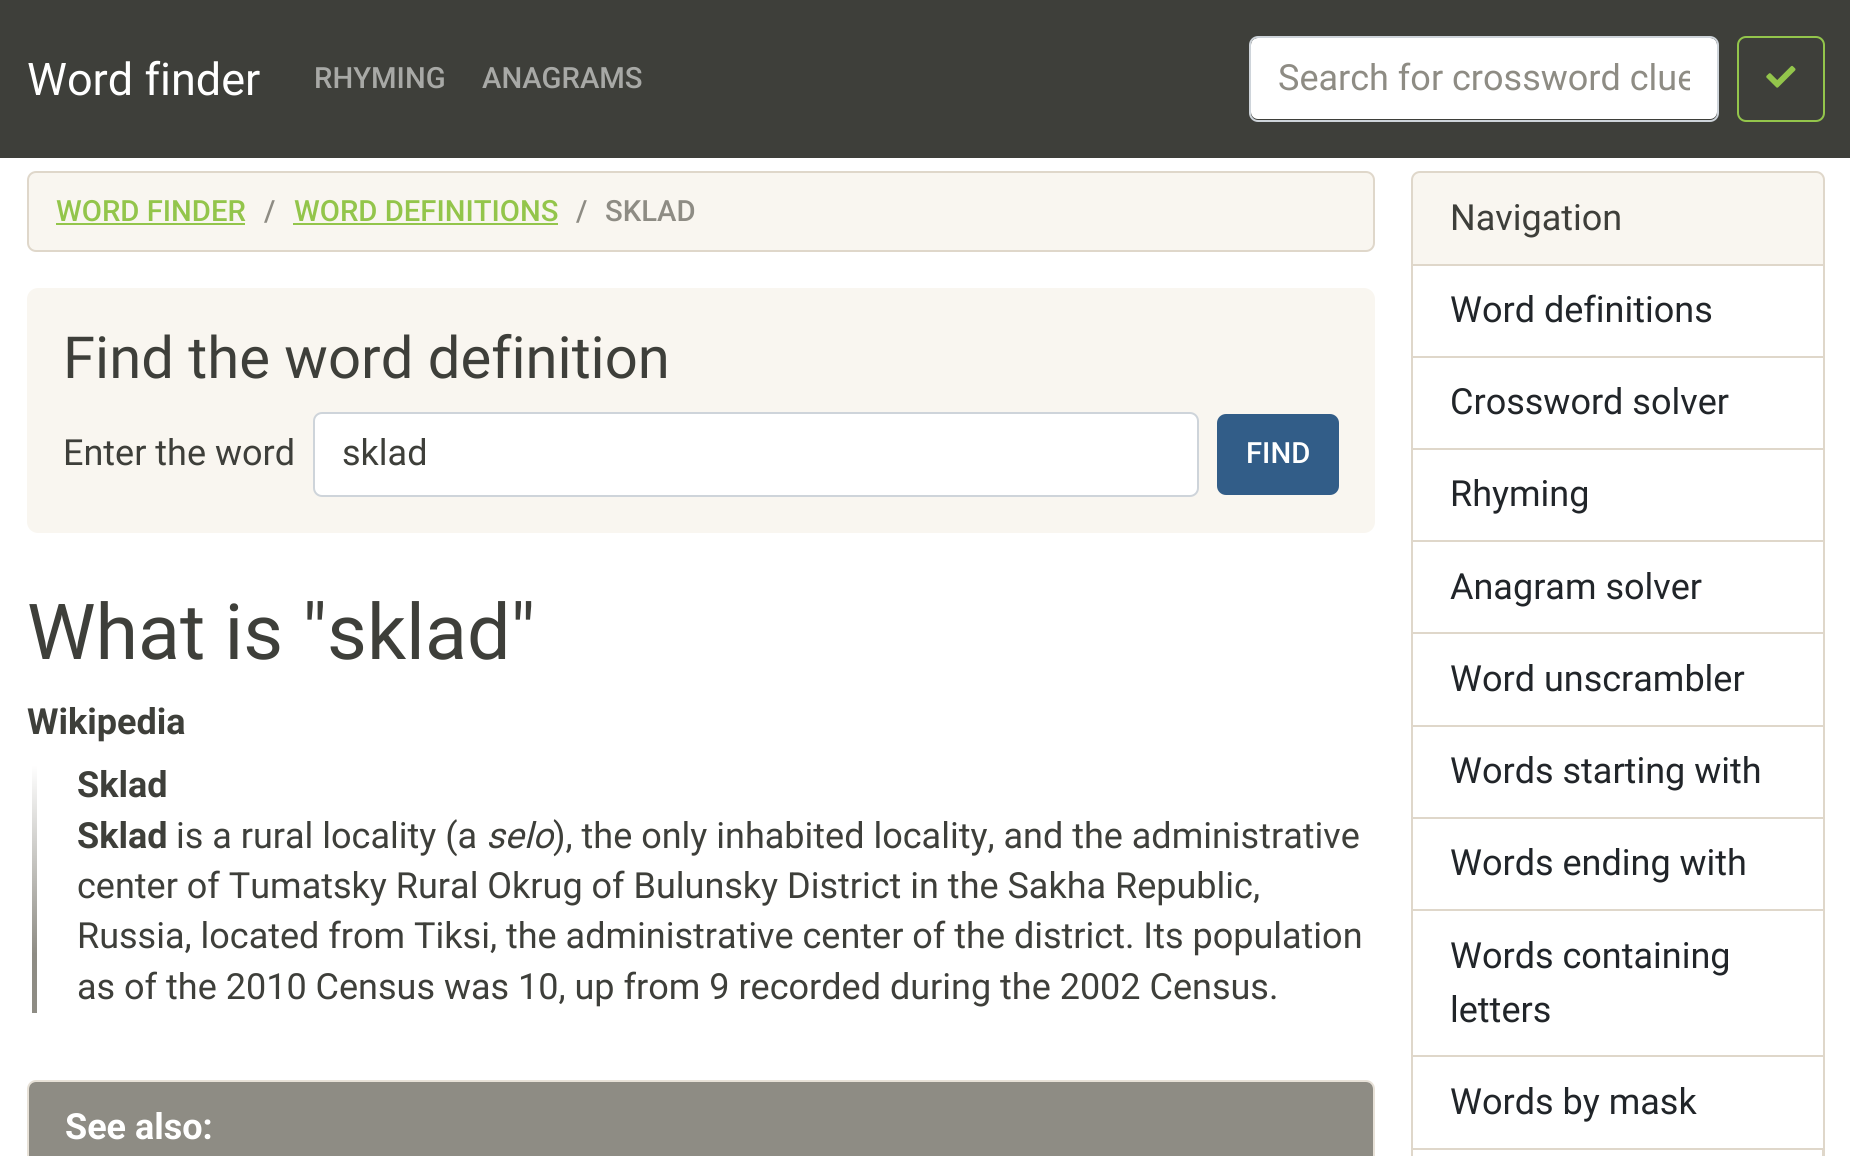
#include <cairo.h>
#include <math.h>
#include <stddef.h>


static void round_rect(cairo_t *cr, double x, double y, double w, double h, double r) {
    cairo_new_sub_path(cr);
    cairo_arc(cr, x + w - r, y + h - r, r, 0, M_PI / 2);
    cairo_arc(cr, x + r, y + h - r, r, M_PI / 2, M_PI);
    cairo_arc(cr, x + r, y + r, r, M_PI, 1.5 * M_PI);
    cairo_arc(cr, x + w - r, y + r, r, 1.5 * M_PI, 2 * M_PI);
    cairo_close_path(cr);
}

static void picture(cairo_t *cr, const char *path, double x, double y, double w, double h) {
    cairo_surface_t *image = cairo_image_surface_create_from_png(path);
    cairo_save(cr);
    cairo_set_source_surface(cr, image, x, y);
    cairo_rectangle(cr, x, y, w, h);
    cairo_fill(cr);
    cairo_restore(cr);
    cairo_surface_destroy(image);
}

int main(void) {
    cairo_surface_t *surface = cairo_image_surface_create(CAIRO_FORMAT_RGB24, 1850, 1156);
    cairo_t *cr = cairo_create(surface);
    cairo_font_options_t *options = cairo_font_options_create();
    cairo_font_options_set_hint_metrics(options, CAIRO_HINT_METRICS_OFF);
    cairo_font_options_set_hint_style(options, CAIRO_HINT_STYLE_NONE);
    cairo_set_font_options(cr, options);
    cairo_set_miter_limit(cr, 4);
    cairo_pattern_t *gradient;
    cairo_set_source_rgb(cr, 1, 1, 1);
    cairo_paint(cr);
    cairo_set_source_rgb(cr, 0.243, 0.247, 0.227);
    cairo_rectangle(cr, 0, 0, 1850, 158);
    cairo_fill(cr);
    cairo_select_font_face(cr, "Roboto", CAIRO_FONT_SLANT_NORMAL, CAIRO_FONT_WEIGHT_NORMAL);
    cairo_set_font_size(cr, 45);
    cairo_set_source_rgb(cr, 1, 1, 1);
    cairo_move_to(cr, 27, 95);
    cairo_show_text(cr, "Word finder");
    cairo_select_font_face(cr, "Roboto Medium", CAIRO_FONT_SLANT_NORMAL, CAIRO_FONT_WEIGHT_NORMAL);
    cairo_set_font_size(cr, 29.25);
    cairo_set_source_rgb(cr, 0.659, 0.663, 0.651);
    cairo_move_to(cr, 314, 88);
    cairo_show_text(cr, "RHYMING");
    cairo_move_to(cr, 482, 88);
    cairo_show_text(cr, "ANAGRAMS");
    cairo_set_source_rgb(cr, 1, 1, 1);
    round_rect(cr, 1251, 38, 466, 81, 7);
    cairo_fill(cr);
    round_rect(cr, 1250, 37, 468, 84, 8);
    cairo_set_source_rgb(cr, 0.808, 0.831, 0.855);
    cairo_stroke(cr);
    cairo_save(cr);
    cairo_rectangle(cr, 1278, 56, 412, 43);
    cairo_clip(cr);
    cairo_select_font_face(cr, "Roboto", CAIRO_FONT_SLANT_NORMAL, CAIRO_FONT_WEIGHT_NORMAL);
    cairo_set_font_size(cr, 36);
    cairo_set_source_rgb(cr, 0.557, 0.549, 0.518);
    cairo_move_to(cr, 1278, 90);
    cairo_show_text(cr, "Search for crossword clue");
    cairo_restore(cr);
    round_rect(cr, 1738, 37, 86, 84, 8);
    cairo_set_source_rgb(cr, 0.576, 0.773, 0.294);
    cairo_stroke(cr);
    picture(cr, "img1.png", 1766, 65, 30, 23);
    cairo_set_source_rgb(cr, 0.973, 0.961, 0.941);
    round_rect(cr, 28, 172, 1346, 79, 8);
    cairo_fill_preserve(cr);
    cairo_set_source_rgb(cr, 0.875, 0.843, 0.792);
    cairo_stroke(cr);
    cairo_set_source_rgb(cr, 0.576, 0.773, 0.294);
    cairo_move_to(cr, 56, 221);
    cairo_show_text(cr, "WORD FINDER");
    cairo_rectangle(cr, 56, 223, 189, 2);
    cairo_fill(cr);
    cairo_set_source_rgb(cr, 0.557, 0.549, 0.518);
    cairo_move_to(cr, 264, 221);
    cairo_show_text(cr, "/");
    cairo_set_source_rgb(cr, 0.576, 0.773, 0.294);
    cairo_move_to(cr, 294, 221);
    cairo_show_text(cr, "WORD DEFINITIONS");
    cairo_rectangle(cr, 293, 223, 265, 2);
    cairo_fill(cr);
    cairo_set_source_rgb(cr, 0.557, 0.549, 0.518);
    cairo_move_to(cr, 576, 221);
    cairo_show_text(cr, "/");
    cairo_move_to(cr, 605, 221);
    cairo_show_text(cr, "SKLAD");
    cairo_set_source_rgb(cr, 0.973, 0.961, 0.941);
    round_rect(cr, 27, 288, 1348, 245, 11);
    cairo_fill(cr);
    cairo_select_font_face(cr, "Roboto", CAIRO_FONT_SLANT_NORMAL, CAIRO_FONT_WEIGHT_NORMAL);
    cairo_set_font_size(cr, 58);
    cairo_set_source_rgb(cr, 0.243, 0.247, 0.227);
    cairo_move_to(cr, 63, 378);
    cairo_show_text(cr, "Find the word definition");
    cairo_set_font_size(cr, 36);
    cairo_move_to(cr, 63, 465);
    cairo_show_text(cr, "Enter the word");
    cairo_set_source_rgb(cr, 1, 1, 1);
    round_rect(cr, 314, 413, 884, 83, 8);
    cairo_fill_preserve(cr);
    cairo_set_source_rgb(cr, 0.808, 0.831, 0.855);
    cairo_stroke(cr);
    cairo_set_source_rgb(cr, 0.243, 0.247, 0.227);
    cairo_move_to(cr, 342, 465);
    cairo_show_text(cr, "sklad");
    cairo_set_source_rgb(cr, 0.196, 0.365, 0.533);
    round_rect(cr, 1218, 415, 120, 79, 8);
    cairo_fill_preserve(cr);
    cairo_stroke(cr);
    cairo_select_font_face(cr, "Roboto Medium", CAIRO_FONT_SLANT_NORMAL, CAIRO_FONT_WEIGHT_NORMAL);
    cairo_set_font_size(cr, 29.25);
    cairo_set_source_rgb(cr, 1, 1, 1);
    cairo_move_to(cr, 1246, 463);
    cairo_show_text(cr, "FIND");
    cairo_select_font_face(cr, "Roboto", CAIRO_FONT_SLANT_NORMAL, CAIRO_FONT_WEIGHT_NORMAL);
    cairo_set_font_size(cr, 77.25);
    cairo_set_source_rgb(cr, 0.243, 0.247, 0.227);
    cairo_move_to(cr, 27, 659);
    cairo_show_text(cr, "What is \"sklad\"");
    cairo_select_font_face(cr, "Roboto", CAIRO_FONT_SLANT_NORMAL, CAIRO_FONT_WEIGHT_BOLD);
    cairo_set_font_size(cr, 36);
    cairo_move_to(cr, 27, 734);
    cairo_show_text(cr, "Wikipedia");
    gradient = cairo_pattern_create_linear(34, 765, 34, 1017);
    cairo_pattern_add_color_stop_rgba(gradient, 0, 1, 1, 1, 1);
    cairo_pattern_add_color_stop_rgba(gradient, 0.75, 0.557, 0.549, 0.518, 1);
    cairo_set_source(cr, gradient);
    cairo_pattern_destroy(gradient);
    cairo_rectangle(cr, 32, 765, 5, 248);
    cairo_fill(cr);
    cairo_set_source_rgb(cr, 0.243, 0.247, 0.227);
    cairo_move_to(cr, 77, 797);
    cairo_show_text(cr, "Sklad");
    cairo_move_to(cr, 77, 848);
    cairo_show_text(cr, "Sklad");
    cairo_select_font_face(cr, "Roboto", CAIRO_FONT_SLANT_NORMAL, CAIRO_FONT_WEIGHT_NORMAL);
    cairo_move_to(cr, 176, 848);
    cairo_show_text(cr, "is a rural locality (a");
    cairo_select_font_face(cr, "Roboto", CAIRO_FONT_SLANT_ITALIC, CAIRO_FONT_WEIGHT_NORMAL);
    cairo_move_to(cr, 486, 848);
    cairo_show_text(cr, "selo");
    cairo_select_font_face(cr, "Roboto", CAIRO_FONT_SLANT_NORMAL, CAIRO_FONT_WEIGHT_NORMAL);
    cairo_move_to(cr, 553, 848);
    cairo_show_text(cr, "), the only inhabited locality, and the administrative");
    cairo_move_to(cr, 77, 898);
    cairo_show_text(cr, "center of Tumatsky Rural Okrug of Bulunsky District in the Sakha Republic,");
    cairo_move_to(cr, 77, 948);
    cairo_show_text(cr, "Russia, located from Tiksi, the administrative center of the district. Its population");
    cairo_move_to(cr, 77, 999);
    cairo_show_text(cr, "as of the 2010 Census was 10, up from 9 recorded during the 2002 Census.");
    round_rect(cr, 28, 1081, 1346, 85, 8);
    cairo_set_source_rgb(cr, 0.906, 0.882, 0.843);
    cairo_stroke(cr);
    cairo_set_source_rgb(cr, 0.557, 0.549, 0.518);
    cairo_new_path(cr);
    cairo_move_to(cr, 36, 1082);
    cairo_line_to(cr, 1366, 1082);
    cairo_curve_to(cr, 1370, 1082, 1373, 1085, 1373, 1089);
    cairo_line_to(cr, 1373, 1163);
    cairo_line_to(cr, 29, 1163);
    cairo_line_to(cr, 29, 1089);
    cairo_curve_to(cr, 29, 1085, 32, 1082, 36, 1082);
    cairo_close_path(cr);
    cairo_fill(cr);
    cairo_select_font_face(cr, "Roboto", CAIRO_FONT_SLANT_NORMAL, CAIRO_FONT_WEIGHT_BOLD);
    cairo_set_source_rgb(cr, 1, 1, 1);
    cairo_move_to(cr, 65, 1139);
    cairo_show_text(cr, "See also:");
    cairo_set_source_rgb(cr, 0.973, 0.961, 0.941);
    cairo_new_path(cr);
    cairo_move_to(cr, 1420, 172);
    cairo_line_to(cr, 1816, 172);
    cairo_curve_to(cr, 1820.5, 172, 1824, 175.5, 1824, 180);
    cairo_line_to(cr, 1824, 265);
    cairo_line_to(cr, 1412, 265);
    cairo_line_to(cr, 1412, 180);
    cairo_curve_to(cr, 1412, 175.5, 1415.5, 172, 1420, 172);
    cairo_close_path(cr);
    cairo_fill_preserve(cr);
    cairo_set_source_rgb(cr, 0.875, 0.843, 0.792);
    cairo_stroke(cr);
    cairo_select_font_face(cr, "Roboto", CAIRO_FONT_SLANT_NORMAL, CAIRO_FONT_WEIGHT_NORMAL);
    cairo_set_source_rgb(cr, 0.243, 0.247, 0.227);
    cairo_move_to(cr, 1450, 230);
    cairo_show_text(cr, "Navigation");
    cairo_set_source_rgb(cr, 0.875, 0.843, 0.792);
    cairo_rectangle(cr, 1823, 266, 2, 884);
    cairo_fill(cr);
    cairo_rectangle(cr, 1411, 356, 414, 2);
    cairo_fill(cr);
    cairo_rectangle(cr, 1411, 266, 2, 92);
    cairo_fill(cr);
    cairo_set_source_rgb(cr, 0.129, 0.145, 0.161);
    cairo_move_to(cr, 1450, 322);
    cairo_show_text(cr, "Word definitions");
    cairo_set_source_rgb(cr, 0.875, 0.843, 0.792);
    cairo_rectangle(cr, 1411, 448, 414, 2);
    cairo_fill(cr);
    cairo_rectangle(cr, 1411, 358, 2, 92);
    cairo_fill(cr);
    cairo_set_source_rgb(cr, 0.129, 0.145, 0.161);
    cairo_move_to(cr, 1450, 414);
    cairo_show_text(cr, "Crossword solver");
    cairo_set_source_rgb(cr, 0.875, 0.843, 0.792);
    cairo_rectangle(cr, 1411, 540, 414, 2);
    cairo_fill(cr);
    cairo_rectangle(cr, 1411, 450, 2, 92);
    cairo_fill(cr);
    cairo_set_source_rgb(cr, 0.129, 0.145, 0.161);
    cairo_move_to(cr, 1450, 506);
    cairo_show_text(cr, "Rhyming");
    cairo_set_source_rgb(cr, 0.875, 0.843, 0.792);
    cairo_rectangle(cr, 1411, 632, 414, 2);
    cairo_fill(cr);
    cairo_rectangle(cr, 1411, 542, 2, 93);
    cairo_fill(cr);
    cairo_set_source_rgb(cr, 0.129, 0.145, 0.161);
    cairo_move_to(cr, 1450, 599);
    cairo_show_text(cr, "Anagram solver");
    cairo_set_source_rgb(cr, 0.875, 0.843, 0.792);
    cairo_rectangle(cr, 1411, 725, 414, 2);
    cairo_fill(cr);
    cairo_rectangle(cr, 1411, 635, 2, 92);
    cairo_fill(cr);
    cairo_set_source_rgb(cr, 0.129, 0.145, 0.161);
    cairo_move_to(cr, 1450, 691);
    cairo_show_text(cr, "Word unscrambler");
    cairo_set_source_rgb(cr, 0.875, 0.843, 0.792);
    cairo_rectangle(cr, 1411, 817, 414, 2);
    cairo_fill(cr);
    cairo_rectangle(cr, 1411, 727, 2, 92);
    cairo_fill(cr);
    cairo_set_source_rgb(cr, 0.129, 0.145, 0.161);
    cairo_move_to(cr, 1450, 783);
    cairo_show_text(cr, "Words starting with");
    cairo_set_source_rgb(cr, 0.875, 0.843, 0.792);
    cairo_rectangle(cr, 1411, 909, 414, 2);
    cairo_fill(cr);
    cairo_rectangle(cr, 1411, 819, 2, 92);
    cairo_fill(cr);
    cairo_set_source_rgb(cr, 0.129, 0.145, 0.161);
    cairo_move_to(cr, 1450, 875);
    cairo_show_text(cr, "Words ending with");
    cairo_set_source_rgb(cr, 0.875, 0.843, 0.792);
    cairo_rectangle(cr, 1411, 1055, 414, 2);
    cairo_fill(cr);
    cairo_rectangle(cr, 1411, 911, 2, 147);
    cairo_fill(cr);
    cairo_set_source_rgb(cr, 0.129, 0.145, 0.161);
    cairo_move_to(cr, 1450, 968);
    cairo_show_text(cr, "Words containing");
    cairo_move_to(cr, 1450, 1022);
    cairo_show_text(cr, "letters");
    cairo_set_source_rgb(cr, 0.875, 0.843, 0.792);
    cairo_rectangle(cr, 1411, 1148, 414, 2);
    cairo_fill(cr);
    cairo_rectangle(cr, 1411, 1058, 2, 92);
    cairo_fill(cr);
    cairo_set_source_rgb(cr, 0.129, 0.145, 0.161);
    cairo_move_to(cr, 1450, 1114);
    cairo_show_text(cr, "Words by mask");
    cairo_set_source_rgb(cr, 0.875, 0.843, 0.792);
    cairo_set_fill_rule(cr, CAIRO_FILL_RULE_EVEN_ODD);
    cairo_new_path(cr);
    cairo_move_to(cr, 1411, 1150);
    cairo_line_to(cr, 1825, 1150);
    cairo_line_to(cr, 1825, 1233);
    cairo_curve_to(cr, 1825, 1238, 1821, 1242, 1816, 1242);
    cairo_line_to(cr, 1420, 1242);
    cairo_curve_to(cr, 1415, 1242, 1411, 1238, 1411, 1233);
    cairo_close_path(cr);
    cairo_move_to(cr, 1413, 1150);
    cairo_line_to(cr, 1822, 1150);
    cairo_line_to(cr, 1822, 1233);
    cairo_curve_to(cr, 1822, 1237, 1819, 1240, 1816, 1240);
    cairo_line_to(cr, 1420, 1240);
    cairo_curve_to(cr, 1416, 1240, 1413, 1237, 1413, 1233);
    cairo_close_path(cr);
    cairo_fill(cr);
    cairo_surface_write_to_png(surface, "page.png");
    cairo_font_options_destroy(options);
    cairo_destroy(cr);
    cairo_surface_destroy(surface);
    return 0;
}
